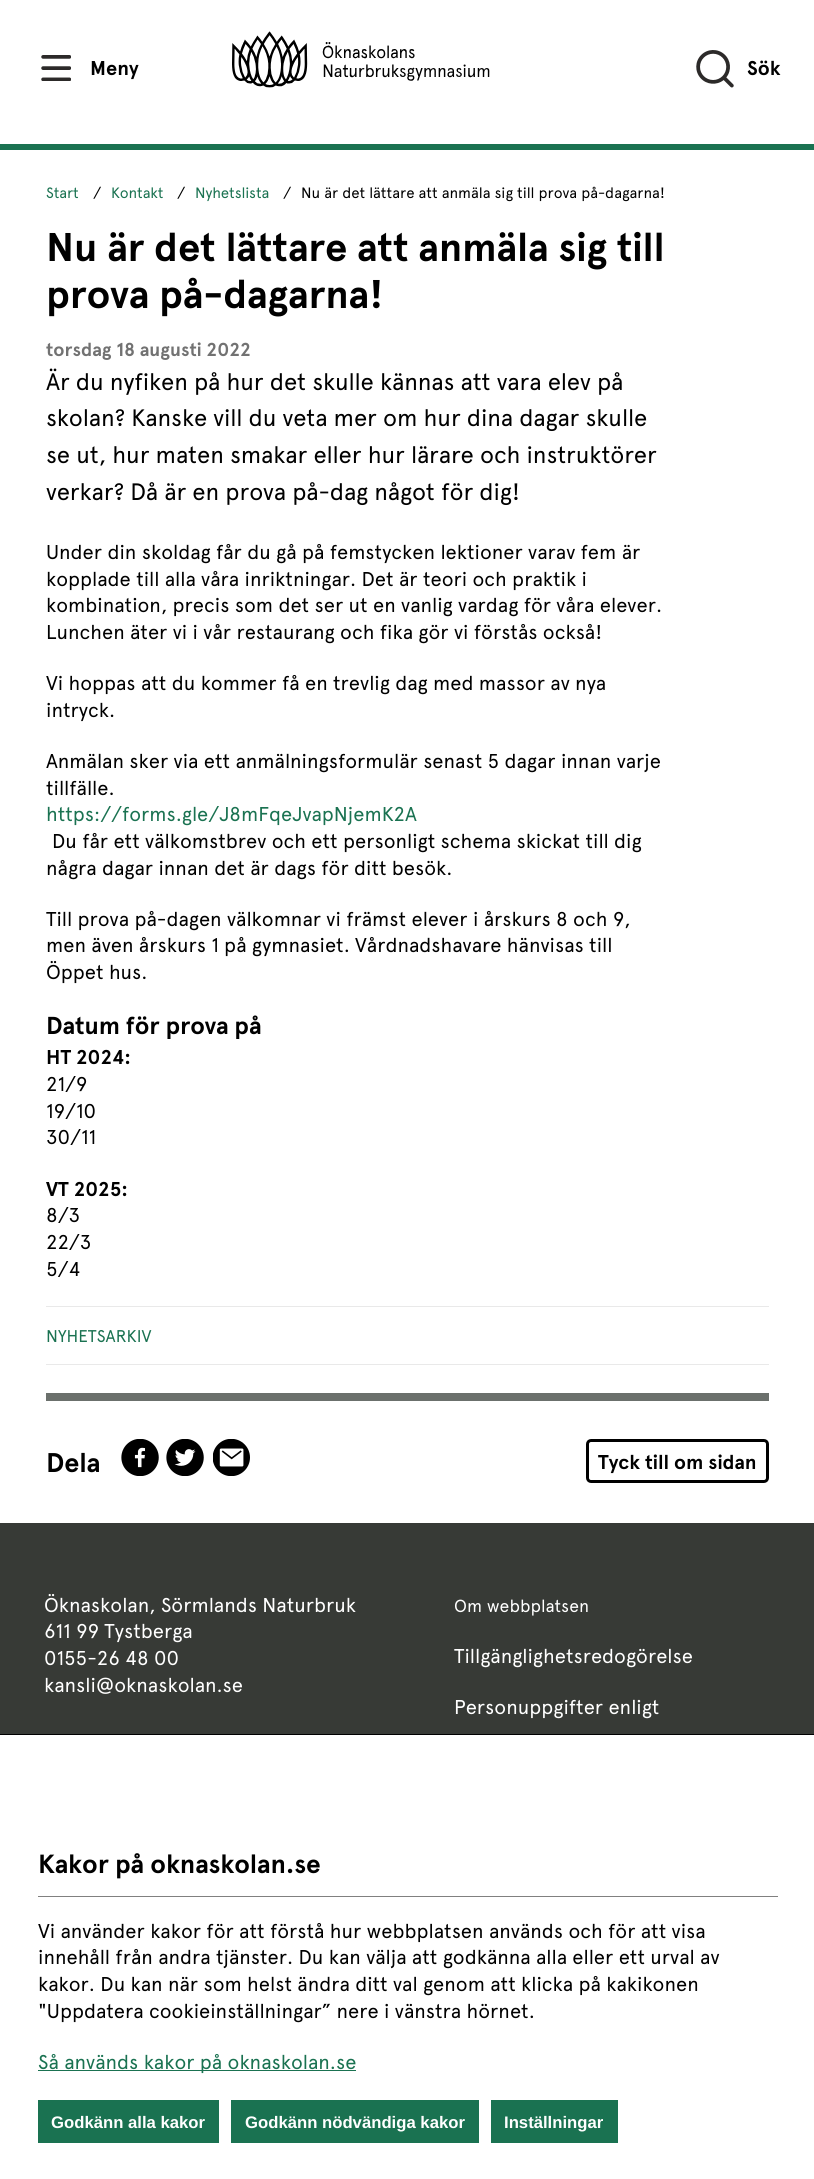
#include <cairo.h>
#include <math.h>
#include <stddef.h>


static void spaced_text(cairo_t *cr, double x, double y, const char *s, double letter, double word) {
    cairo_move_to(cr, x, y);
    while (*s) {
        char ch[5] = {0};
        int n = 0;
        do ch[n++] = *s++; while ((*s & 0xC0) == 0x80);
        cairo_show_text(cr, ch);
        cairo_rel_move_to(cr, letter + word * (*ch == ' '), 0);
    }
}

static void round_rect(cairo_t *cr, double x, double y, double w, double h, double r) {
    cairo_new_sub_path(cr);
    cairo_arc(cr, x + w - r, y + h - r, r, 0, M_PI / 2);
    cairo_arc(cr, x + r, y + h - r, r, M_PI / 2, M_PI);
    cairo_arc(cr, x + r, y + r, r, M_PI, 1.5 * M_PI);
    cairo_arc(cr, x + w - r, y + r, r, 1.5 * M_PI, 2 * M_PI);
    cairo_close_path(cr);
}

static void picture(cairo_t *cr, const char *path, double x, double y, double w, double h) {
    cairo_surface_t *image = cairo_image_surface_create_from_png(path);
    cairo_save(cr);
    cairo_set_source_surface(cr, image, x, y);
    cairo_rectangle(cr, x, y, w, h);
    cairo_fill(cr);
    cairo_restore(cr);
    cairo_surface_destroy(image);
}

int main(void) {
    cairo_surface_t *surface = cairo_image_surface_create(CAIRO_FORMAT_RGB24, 814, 2179);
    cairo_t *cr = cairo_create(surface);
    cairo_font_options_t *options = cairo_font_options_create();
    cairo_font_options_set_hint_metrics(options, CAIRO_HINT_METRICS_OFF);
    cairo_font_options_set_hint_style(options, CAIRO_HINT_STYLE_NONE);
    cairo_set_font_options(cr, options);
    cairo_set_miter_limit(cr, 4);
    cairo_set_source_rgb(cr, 1, 1, 1);
    cairo_paint(cr);
    cairo_set_source_rgb(cr, 0.102, 0.447, 0.318);
    cairo_rectangle(cr, 0, 144, 814, 6);
    cairo_fill(cr);
    picture(cr, "img1.png", 41, 55, 30, 26);
    cairo_select_font_face(cr, "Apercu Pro", CAIRO_FONT_SLANT_NORMAL, CAIRO_FONT_WEIGHT_BOLD);
    cairo_set_font_size(cr, 20);
    cairo_set_source_rgb(cr, 0, 0, 0);
    cairo_move_to(cr, 90, 75);
    cairo_show_text(cr, "Meny");
    picture(cr, "img2.png", 232, 31, 258, 57);
    picture(cr, "img3.png", 696, 50, 38, 38);
    cairo_move_to(cr, 747, 75);
    cairo_show_text(cr, "Sök");
    cairo_select_font_face(cr, "Apercu Pro", CAIRO_FONT_SLANT_NORMAL, CAIRO_FONT_WEIGHT_NORMAL);
    cairo_set_font_size(cr, 15);
    cairo_set_source_rgb(cr, 0.102, 0.447, 0.318);
    spaced_text(cr, 46, 198, "Start", -0.12, 0);
    cairo_set_source_rgb(cr, 0, 0, 0);
    cairo_move_to(cr, 93, 198);
    cairo_show_text(cr, "/");
    cairo_set_source_rgb(cr, 0.102, 0.447, 0.318);
    spaced_text(cr, 111, 198, "Kontakt", -0.12, 0);
    cairo_set_source_rgb(cr, 0, 0, 0);
    cairo_move_to(cr, 177, 198);
    cairo_show_text(cr, "/");
    cairo_set_source_rgb(cr, 0.102, 0.447, 0.318);
    spaced_text(cr, 195, 198, "Nyhetslista", -0.12, 0);
    cairo_set_source_rgb(cr, 0, 0, 0);
    cairo_move_to(cr, 283, 198);
    cairo_show_text(cr, "/");
    cairo_move_to(cr, 301, 198);
    cairo_show_text(cr, "Nu är det lättare att anmäla sig till prova på-dagarna!");
    cairo_select_font_face(cr, "Apercu Pro", CAIRO_FONT_SLANT_NORMAL, CAIRO_FONT_WEIGHT_BOLD);
    cairo_set_font_size(cr, 40);
    spaced_text(cr, 46, 261, "Nu är det lättare att anmäla sig till", -0.12, 0);
    spaced_text(cr, 46, 308, "prova på-dagarna!", -0.12, 0);
    cairo_set_font_size(cr, 18.75);
    cairo_set_source_rgb(cr, 0.447, 0.447, 0.447);
    cairo_move_to(cr, 46, 356);
    cairo_show_text(cr, "torsdag 18 augusti 2022");
    cairo_select_font_face(cr, "Apercu Pro", CAIRO_FONT_SLANT_NORMAL, CAIRO_FONT_WEIGHT_NORMAL);
    cairo_set_font_size(cr, 23.75);
    cairo_set_source_rgb(cr, 0, 0, 0);
    spaced_text(cr, 46, 390, "Är du nyfiken på hur det skulle kännas att vara elev på", -0.12, 0);
    spaced_text(cr, 46, 426, "skolan? Kanske vill du veta mer om hur dina dagar skulle", -0.12, 0);
    spaced_text(cr, 46, 463, "se ut, hur maten smakar eller hur lärare och instruktörer", -0.12, 0);
    spaced_text(cr, 46, 500, "verkar? Då är en prova på-dag något för dig!", -0.12, 0);
    cairo_set_font_size(cr, 20);
    cairo_move_to(cr, 46, 559);
    cairo_show_text(cr, "Under din skoldag får du gå på femstycken lektioner varav fem är");
    cairo_move_to(cr, 46, 586);
    cairo_show_text(cr, "kopplade till alla våra inriktningar. Det är teori och praktik i");
    cairo_move_to(cr, 46, 612);
    cairo_show_text(cr, "kombination, precis som det ser ut en vanlig vardag för våra elever.");
    cairo_move_to(cr, 46, 639);
    cairo_show_text(cr, "Lunchen äter vi i vår restaurang och fika gör vi förstås också!");
    cairo_move_to(cr, 46, 690);
    cairo_show_text(cr, "Vi hoppas att du kommer få en trevlig dag med massor av nya");
    cairo_move_to(cr, 46, 717);
    cairo_show_text(cr, "intryck.");
    cairo_move_to(cr, 46, 768);
    cairo_show_text(cr, "Anmälan sker via ett anmälningsformulär senast 5 dagar innan varje");
    cairo_move_to(cr, 46, 795);
    cairo_show_text(cr, "tillfälle.");
    cairo_set_source_rgb(cr, 0.102, 0.447, 0.318);
    cairo_move_to(cr, 46, 821);
    cairo_show_text(cr, "https://forms.gle/J8mFqeJvapNjemK2A");
    cairo_set_source_rgb(cr, 0, 0, 0);
    cairo_move_to(cr, 52, 848);
    cairo_show_text(cr, "Du får ett välkomstbrev och ett personligt schema skickat till dig");
    cairo_move_to(cr, 46, 875);
    cairo_show_text(cr, "några dagar innan det är dags för ditt besök.");
    cairo_move_to(cr, 46, 926);
    cairo_show_text(cr, "Till prova på-dagen välkomnar vi främst elever i årskurs 8 och 9,");
    cairo_move_to(cr, 46, 952);
    cairo_show_text(cr, "men även årskurs 1 på gymnasiet. Vårdnadshavare hänvisas till");
    cairo_move_to(cr, 46, 979);
    cairo_show_text(cr, "Öppet hus.");
    cairo_select_font_face(cr, "Apercu Pro", CAIRO_FONT_SLANT_NORMAL, CAIRO_FONT_WEIGHT_BOLD);
    cairo_set_font_size(cr, 24.5);
    spaced_text(cr, 46, 1034, "Datum för prova på", -0.12, 0);
    cairo_set_font_size(cr, 20);
    cairo_move_to(cr, 46, 1064);
    cairo_show_text(cr, "HT 2024:");
    cairo_select_font_face(cr, "Apercu Pro", CAIRO_FONT_SLANT_NORMAL, CAIRO_FONT_WEIGHT_NORMAL);
    cairo_move_to(cr, 46, 1091);
    cairo_show_text(cr, "21/9");
    cairo_move_to(cr, 46, 1118);
    cairo_show_text(cr, "19/10");
    cairo_move_to(cr, 46, 1144);
    cairo_show_text(cr, "30/11");
    cairo_select_font_face(cr, "Apercu Pro", CAIRO_FONT_SLANT_NORMAL, CAIRO_FONT_WEIGHT_BOLD);
    cairo_move_to(cr, 46, 1196);
    cairo_show_text(cr, "VT 2025:");
    cairo_select_font_face(cr, "Apercu Pro", CAIRO_FONT_SLANT_NORMAL, CAIRO_FONT_WEIGHT_NORMAL);
    cairo_move_to(cr, 46, 1222);
    cairo_show_text(cr, "8/3");
    cairo_move_to(cr, 46, 1249);
    cairo_show_text(cr, "22/3");
    cairo_move_to(cr, 46, 1276);
    cairo_show_text(cr, "5/4");
    cairo_set_source_rgb(cr, 0.914, 0.914, 0.914);
    cairo_rectangle(cr, 46, 1306, 723, 1);
    cairo_fill(cr);
    cairo_rectangle(cr, 46, 1364, 723, 1);
    cairo_fill(cr);
    cairo_set_font_size(cr, 17);
    cairo_set_source_rgb(cr, 0.102, 0.447, 0.318);
    cairo_move_to(cr, 46, 1342);
    cairo_show_text(cr, "NYHETSARKIV");
    cairo_set_source_rgb(cr, 0.42, 0.439, 0.424);
    cairo_rectangle(cr, 46, 1393, 723, 8);
    cairo_fill(cr);
    cairo_select_font_face(cr, "Apercu Pro", CAIRO_FONT_SLANT_NORMAL, CAIRO_FONT_WEIGHT_BOLD);
    cairo_set_font_size(cr, 27);
    cairo_set_source_rgb(cr, 0, 0, 0);
    spaced_text(cr, 46, 1472, "Dela", -0.12, 0);
    picture(cr, "img4.png", 121, 1439, 38, 37);
    picture(cr, "img5.png", 166, 1439, 38, 37);
    picture(cr, "img6.png", 213, 1439, 37, 37);
    round_rect(cr, 587.5, 1440.5, 180, 41, 3.5);
    cairo_set_line_width(cr, 3);
    cairo_stroke(cr);
    cairo_set_font_size(cr, 20);
    cairo_move_to(cr, 598, 1469);
    cairo_show_text(cr, "Tyck till om sidan");
    cairo_set_source_rgb(cr, 0.216, 0.227, 0.212);
    cairo_rectangle(cr, 0, 1523, 814, 211);
    cairo_fill(cr);
    cairo_select_font_face(cr, "Apercu Pro", CAIRO_FONT_SLANT_NORMAL, CAIRO_FONT_WEIGHT_NORMAL);
    cairo_set_source_rgb(cr, 1, 1, 1);
    cairo_move_to(cr, 44, 1612);
    cairo_show_text(cr, "Öknaskolan, Sörmlands Naturbruk");
    cairo_move_to(cr, 44, 1638);
    cairo_show_text(cr, "611 99 Tystberga");
    cairo_move_to(cr, 44, 1665);
    cairo_show_text(cr, "0155-26 48 00");
    cairo_move_to(cr, 44, 1692);
    cairo_show_text(cr, "kansli@oknaskolan.se");
    cairo_set_font_size(cr, 17.5);
    cairo_move_to(cr, 454, 1612);
    cairo_show_text(cr, "Om webbplatsen");
    cairo_set_font_size(cr, 20);
    cairo_move_to(cr, 454, 1663);
    cairo_show_text(cr, "Tillgänglighetsredogörelse");
    cairo_move_to(cr, 454, 1714);
    cairo_show_text(cr, "Personuppgifter enligt");
    cairo_set_source_rgb(cr, 0, 0, 0);
    cairo_rectangle(cr, 0, 1734, 814, 1);
    cairo_fill(cr);
    cairo_set_source_rgb(cr, 0.502, 0.502, 0.502);
    cairo_rectangle(cr, 38, 1896, 740, 1);
    cairo_fill(cr);
    cairo_select_font_face(cr, "Apercu Pro", CAIRO_FONT_SLANT_NORMAL, CAIRO_FONT_WEIGHT_BOLD);
    cairo_set_font_size(cr, 26.25);
    cairo_set_source_rgb(cr, 0, 0, 0);
    spaced_text(cr, 38, 1873, "Kakor på oknaskolan.se", -0.12, 0);
    cairo_select_font_face(cr, "Apercu Pro", CAIRO_FONT_SLANT_NORMAL, CAIRO_FONT_WEIGHT_NORMAL);
    cairo_set_font_size(cr, 20);
    cairo_move_to(cr, 38, 1938);
    cairo_show_text(cr, "Vi använder kakor för att förstå hur webbplatsen används och för att visa");
    cairo_move_to(cr, 38, 1964);
    cairo_show_text(cr, "innehåll från andra tjänster. Du kan välja att godkänna alla eller ett urval av");
    cairo_move_to(cr, 38, 1991);
    cairo_show_text(cr, "kakor. Du kan när som helst ändra ditt val genom att klicka på kakikonen");
    cairo_move_to(cr, 38, 2018);
    cairo_show_text(cr, "\"Uppdatera cookieinställningar” nere i vänstra hörnet.");
    cairo_set_source_rgb(cr, 0.102, 0.447, 0.318);
    cairo_rectangle(cr, 38, 2070, 318, 1);
    cairo_fill(cr);
    cairo_move_to(cr, 38, 2069);
    cairo_show_text(cr, "Så används kakor på oknaskolan.se");
    cairo_rectangle(cr, 38, 2100, 181, 43);
    cairo_fill(cr);
    cairo_select_font_face(cr, "Liberation Sans", CAIRO_FONT_SLANT_NORMAL, CAIRO_FONT_WEIGHT_BOLD);
    cairo_set_font_size(cr, 16.7);
    cairo_set_source_rgb(cr, 1, 1, 1);
    cairo_move_to(cr, 51, 2128);
    cairo_show_text(cr, "Godkänn alla kakor");
    cairo_set_source_rgb(cr, 0.102, 0.447, 0.318);
    cairo_rectangle(cr, 231, 2100, 248, 43);
    cairo_fill(cr);
    cairo_set_source_rgb(cr, 1, 1, 1);
    cairo_move_to(cr, 245, 2128);
    cairo_show_text(cr, "Godkänn nödvändiga kakor");
    cairo_set_source_rgb(cr, 0.102, 0.447, 0.318);
    cairo_rectangle(cr, 491, 2100, 127, 43);
    cairo_fill(cr);
    cairo_set_source_rgb(cr, 1, 1, 1);
    cairo_move_to(cr, 504, 2128);
    cairo_show_text(cr, "Inställningar");
    cairo_surface_write_to_png(surface, "page.png");
    cairo_font_options_destroy(options);
    cairo_destroy(cr);
    cairo_surface_destroy(surface);
    return 0;
}
